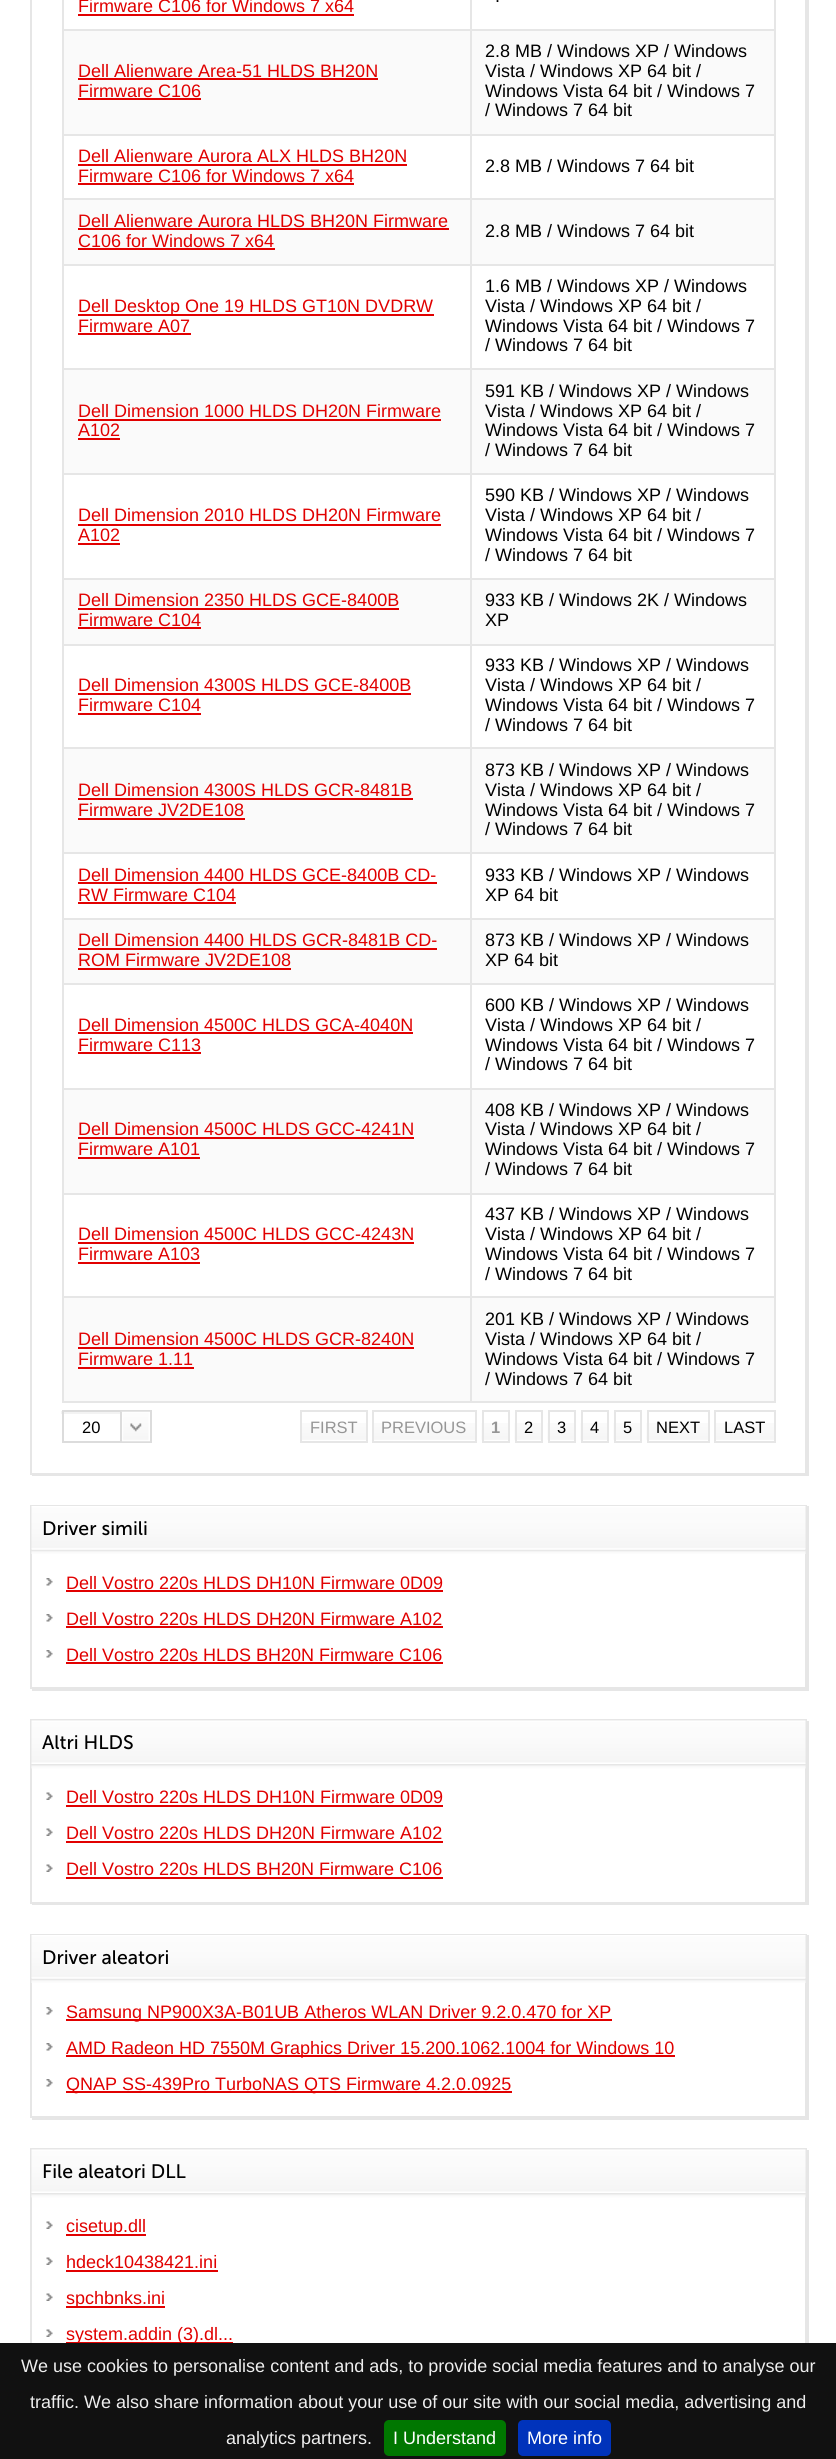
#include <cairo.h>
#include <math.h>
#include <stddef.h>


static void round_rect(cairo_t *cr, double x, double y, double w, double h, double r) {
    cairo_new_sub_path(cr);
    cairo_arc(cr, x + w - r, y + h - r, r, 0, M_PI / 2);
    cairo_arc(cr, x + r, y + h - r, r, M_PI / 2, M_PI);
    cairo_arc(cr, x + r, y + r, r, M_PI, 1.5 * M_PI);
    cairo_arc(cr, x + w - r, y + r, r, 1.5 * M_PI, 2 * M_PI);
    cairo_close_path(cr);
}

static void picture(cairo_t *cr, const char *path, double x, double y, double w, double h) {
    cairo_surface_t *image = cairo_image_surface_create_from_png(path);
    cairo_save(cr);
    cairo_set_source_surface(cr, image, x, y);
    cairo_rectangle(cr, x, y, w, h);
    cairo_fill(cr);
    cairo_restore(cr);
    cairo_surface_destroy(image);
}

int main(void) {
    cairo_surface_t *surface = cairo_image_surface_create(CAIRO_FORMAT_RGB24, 836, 2459);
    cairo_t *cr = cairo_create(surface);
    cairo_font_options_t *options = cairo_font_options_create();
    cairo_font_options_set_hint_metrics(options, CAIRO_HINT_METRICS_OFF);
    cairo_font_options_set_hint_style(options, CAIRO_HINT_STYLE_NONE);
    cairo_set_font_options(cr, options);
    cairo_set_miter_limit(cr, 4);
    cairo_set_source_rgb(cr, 1, 1, 1);
    cairo_paint(cr);
    cairo_set_source_rgb(cr, 0.902, 0.902, 0.902);
    cairo_new_path(cr);
    cairo_move_to(cr, 32, 1474);
    cairo_line_to(cr, 32, 1476);
    cairo_line_to(cr, 809, 1476);
    cairo_line_to(cr, 809, -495);
    cairo_line_to(cr, 807, -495);
    cairo_line_to(cr, 807, 1474);
    cairo_close_path(cr);
    cairo_fill(cr);
    cairo_rectangle(cr, 31, -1, 775, 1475);
    cairo_stroke(cr);
    cairo_rectangle(cr, 774, 0, 2, 1403);
    cairo_fill(cr);
    cairo_rectangle(cr, 470, 1401, 306, 2);
    cairo_fill(cr);
    cairo_rectangle(cr, 470, 1296, 2, 107);
    cairo_fill(cr);
    cairo_rectangle(cr, 470, 1296, 306, 2);
    cairo_fill(cr);
    cairo_rectangle(cr, 470, 1193, 2, 105);
    cairo_fill(cr);
    cairo_rectangle(cr, 470, 1193, 306, 2);
    cairo_fill(cr);
    cairo_rectangle(cr, 470, 1088, 2, 106);
    cairo_fill(cr);
    cairo_rectangle(cr, 470, 1088, 306, 2);
    cairo_fill(cr);
    cairo_rectangle(cr, 470, 983, 2, 106);
    cairo_fill(cr);
    cairo_rectangle(cr, 470, 983, 306, 2);
    cairo_fill(cr);
    cairo_rectangle(cr, 470, 918, 2, 66);
    cairo_fill(cr);
    cairo_rectangle(cr, 470, 918, 306, 2);
    cairo_fill(cr);
    cairo_rectangle(cr, 470, 852, 2, 68);
    cairo_fill(cr);
    cairo_rectangle(cr, 470, 852, 306, 2);
    cairo_fill(cr);
    cairo_rectangle(cr, 470, 747, 2, 107);
    cairo_fill(cr);
    cairo_rectangle(cr, 470, 747, 306, 2);
    cairo_fill(cr);
    cairo_rectangle(cr, 470, 644, 2, 105);
    cairo_fill(cr);
    cairo_rectangle(cr, 470, 644, 306, 2);
    cairo_fill(cr);
    cairo_rectangle(cr, 470, 578, 2, 67);
    cairo_fill(cr);
    cairo_rectangle(cr, 470, 578, 306, 2);
    cairo_fill(cr);
    cairo_rectangle(cr, 470, 473, 2, 106);
    cairo_fill(cr);
    cairo_rectangle(cr, 470, 473, 306, 2);
    cairo_fill(cr);
    cairo_rectangle(cr, 470, 368, 2, 106);
    cairo_fill(cr);
    cairo_rectangle(cr, 470, 368, 306, 2);
    cairo_fill(cr);
    cairo_rectangle(cr, 470, 264, 2, 105);
    cairo_fill(cr);
    cairo_rectangle(cr, 470, 264, 306, 2);
    cairo_fill(cr);
    cairo_rectangle(cr, 470, 198, 2, 68);
    cairo_fill(cr);
    cairo_rectangle(cr, 470, 198, 306, 2);
    cairo_fill(cr);
    cairo_rectangle(cr, 470, 134, 2, 66);
    cairo_fill(cr);
    cairo_rectangle(cr, 470, 134, 306, 2);
    cairo_fill(cr);
    cairo_rectangle(cr, 470, 29, 2, 106);
    cairo_fill(cr);
    cairo_rectangle(cr, 470, 29, 306, 2);
    cairo_fill(cr);
    cairo_rectangle(cr, 470, 0, 2, 30);
    cairo_fill(cr);
    cairo_rectangle(cr, 62, 1401, 409, 2);
    cairo_fill(cr);
    cairo_rectangle(cr, 62, 1296, 2, 107);
    cairo_fill(cr);
    cairo_rectangle(cr, 62, 1296, 409, 2);
    cairo_fill(cr);
    cairo_rectangle(cr, 62, 1193, 2, 105);
    cairo_fill(cr);
    cairo_rectangle(cr, 62, 1193, 409, 2);
    cairo_fill(cr);
    cairo_rectangle(cr, 62, 1088, 2, 106);
    cairo_fill(cr);
    cairo_rectangle(cr, 62, 1088, 409, 2);
    cairo_fill(cr);
    cairo_rectangle(cr, 62, 983, 2, 106);
    cairo_fill(cr);
    cairo_rectangle(cr, 62, 983, 409, 2);
    cairo_fill(cr);
    cairo_rectangle(cr, 62, 918, 2, 66);
    cairo_fill(cr);
    cairo_rectangle(cr, 62, 918, 409, 2);
    cairo_fill(cr);
    cairo_rectangle(cr, 62, 852, 2, 68);
    cairo_fill(cr);
    cairo_rectangle(cr, 62, 852, 409, 2);
    cairo_fill(cr);
    cairo_rectangle(cr, 62, 747, 2, 107);
    cairo_fill(cr);
    cairo_rectangle(cr, 62, 747, 409, 2);
    cairo_fill(cr);
    cairo_rectangle(cr, 62, 644, 2, 105);
    cairo_fill(cr);
    cairo_rectangle(cr, 62, 644, 409, 2);
    cairo_fill(cr);
    cairo_rectangle(cr, 62, 578, 2, 67);
    cairo_fill(cr);
    cairo_rectangle(cr, 62, 578, 409, 2);
    cairo_fill(cr);
    cairo_rectangle(cr, 62, 473, 2, 106);
    cairo_fill(cr);
    cairo_rectangle(cr, 62, 473, 409, 2);
    cairo_fill(cr);
    cairo_rectangle(cr, 62, 368, 2, 106);
    cairo_fill(cr);
    cairo_rectangle(cr, 62, 368, 409, 2);
    cairo_fill(cr);
    cairo_rectangle(cr, 62, 264, 2, 105);
    cairo_fill(cr);
    cairo_rectangle(cr, 62, 264, 409, 2);
    cairo_fill(cr);
    cairo_rectangle(cr, 62, 198, 2, 68);
    cairo_fill(cr);
    cairo_rectangle(cr, 62, 198, 409, 2);
    cairo_fill(cr);
    cairo_rectangle(cr, 62, 134, 2, 66);
    cairo_fill(cr);
    cairo_rectangle(cr, 62, 134, 409, 2);
    cairo_fill(cr);
    cairo_rectangle(cr, 62, 29, 2, 106);
    cairo_fill(cr);
    cairo_rectangle(cr, 62, 29, 409, 2);
    cairo_fill(cr);
    cairo_rectangle(cr, 62, 0, 2, 30);
    cairo_fill(cr);
    cairo_select_font_face(cr, "Liberation Sans", CAIRO_FONT_SLANT_NORMAL, CAIRO_FONT_WEIGHT_NORMAL);
    cairo_set_font_size(cr, 18);
    cairo_set_source_rgb(cr, 0.882, 0, 0);
    cairo_move_to(cr, 78, 12);
    cairo_show_text(cr, "Firmware C106 for Windows 7 x64");
    cairo_rectangle(cr, 78, 14, 276, 2);
    cairo_fill(cr);
    cairo_set_source_rgb(cr, 0, 0, 0);
    cairo_move_to(cr, 495, 2);
    cairo_show_text(cr, ".");
    cairo_set_source_rgb(cr, 0.98, 0.98, 0.98);
    cairo_rectangle(cr, 64, 31, 406, 103);
    cairo_fill(cr);
    cairo_set_source_rgb(cr, 0.882, 0, 0);
    cairo_move_to(cr, 78, 77);
    cairo_show_text(cr, "Dell Alienware Area-51 HLDS BH20N");
    cairo_rectangle(cr, 78, 78, 300, 2);
    cairo_fill(cr);
    cairo_move_to(cr, 78, 97);
    cairo_show_text(cr, "Firmware C106");
    cairo_rectangle(cr, 78, 98, 123, 2);
    cairo_fill(cr);
    cairo_set_source_rgb(cr, 0.98, 0.98, 0.98);
    cairo_rectangle(cr, 472, 31, 302, 103);
    cairo_fill(cr);
    cairo_set_source_rgb(cr, 0, 0, 0);
    cairo_move_to(cr, 485, 57);
    cairo_show_text(cr, "2.8 MB / Windows XP / Windows");
    cairo_move_to(cr, 485, 77);
    cairo_show_text(cr, "Vista / Windows XP 64 bit /");
    cairo_move_to(cr, 485, 97);
    cairo_show_text(cr, "Windows Vista 64 bit / Windows 7");
    cairo_move_to(cr, 485, 116);
    cairo_show_text(cr, "/ Windows 7 64 bit");
    cairo_set_source_rgb(cr, 0.882, 0, 0);
    cairo_move_to(cr, 78, 162);
    cairo_show_text(cr, "Dell Alienware Aurora ALX HLDS BH20N");
    cairo_rectangle(cr, 78, 164, 329, 2);
    cairo_fill(cr);
    cairo_move_to(cr, 78, 182);
    cairo_show_text(cr, "Firmware C106 for Windows 7 x64");
    cairo_rectangle(cr, 78, 183, 276, 2);
    cairo_fill(cr);
    cairo_set_source_rgb(cr, 0, 0, 0);
    cairo_move_to(cr, 485, 172);
    cairo_show_text(cr, "2.8 MB / Windows 7 64 bit");
    cairo_set_source_rgb(cr, 0.98, 0.98, 0.98);
    cairo_rectangle(cr, 64, 200, 406, 64);
    cairo_fill(cr);
    cairo_set_source_rgb(cr, 0.882, 0, 0);
    cairo_move_to(cr, 78, 227);
    cairo_show_text(cr, "Dell Alienware Aurora HLDS BH20N Firmware");
    cairo_rectangle(cr, 78, 228, 371, 2);
    cairo_fill(cr);
    cairo_move_to(cr, 78, 247);
    cairo_show_text(cr, "C106 for Windows 7 x64");
    cairo_rectangle(cr, 78, 248, 197, 2);
    cairo_fill(cr);
    cairo_set_source_rgb(cr, 0.98, 0.98, 0.98);
    cairo_rectangle(cr, 472, 200, 302, 64);
    cairo_fill(cr);
    cairo_set_source_rgb(cr, 0, 0, 0);
    cairo_move_to(cr, 485, 237);
    cairo_show_text(cr, "2.8 MB / Windows 7 64 bit");
    cairo_set_source_rgb(cr, 0.882, 0, 0);
    cairo_rectangle(cr, 78, 314, 356, 2);
    cairo_fill(cr);
    cairo_move_to(cr, 78, 312);
    cairo_show_text(cr, "Dell Desktop One 19 HLDS GT10N DVDRW");
    cairo_move_to(cr, 78, 332);
    cairo_show_text(cr, "Firmware A07");
    cairo_rectangle(cr, 78, 333, 113, 2);
    cairo_fill(cr);
    cairo_set_source_rgb(cr, 0, 0, 0);
    cairo_move_to(cr, 485, 292);
    cairo_show_text(cr, "1.6 MB / Windows XP / Windows");
    cairo_move_to(cr, 485, 312);
    cairo_show_text(cr, "Vista / Windows XP 64 bit /");
    cairo_move_to(cr, 485, 332);
    cairo_show_text(cr, "Windows Vista 64 bit / Windows 7");
    cairo_move_to(cr, 485, 351);
    cairo_show_text(cr, "/ Windows 7 64 bit");
    cairo_set_source_rgb(cr, 0.98, 0.98, 0.98);
    cairo_rectangle(cr, 64, 370, 406, 103);
    cairo_fill(cr);
    cairo_set_source_rgb(cr, 0.882, 0, 0);
    cairo_move_to(cr, 78, 417);
    cairo_show_text(cr, "Dell Dimension 1000 HLDS DH20N Firmware");
    cairo_rectangle(cr, 78, 419, 363, 2);
    cairo_fill(cr);
    cairo_move_to(cr, 78, 436);
    cairo_show_text(cr, "A102");
    cairo_rectangle(cr, 78, 438, 42, 2);
    cairo_fill(cr);
    cairo_set_source_rgb(cr, 0.98, 0.98, 0.98);
    cairo_rectangle(cr, 472, 370, 302, 103);
    cairo_fill(cr);
    cairo_set_source_rgb(cr, 0, 0, 0);
    cairo_move_to(cr, 485, 397);
    cairo_show_text(cr, "591 KB / Windows XP / Windows");
    cairo_move_to(cr, 485, 417);
    cairo_show_text(cr, "Vista / Windows XP 64 bit /");
    cairo_move_to(cr, 485, 436);
    cairo_show_text(cr, "Windows Vista 64 bit / Windows 7");
    cairo_move_to(cr, 485, 456);
    cairo_show_text(cr, "/ Windows 7 64 bit");
    cairo_set_source_rgb(cr, 0.882, 0, 0);
    cairo_move_to(cr, 78, 521);
    cairo_show_text(cr, "Dell Dimension 2010 HLDS DH20N Firmware");
    cairo_move_to(cr, 78, 541);
    cairo_show_text(cr, "A102");
    cairo_rectangle(cr, 78, 524, 363, 2);
    cairo_fill(cr);
    cairo_rectangle(cr, 78, 543, 42, 2);
    cairo_fill(cr);
    cairo_set_source_rgb(cr, 0, 0, 0);
    cairo_move_to(cr, 485, 501);
    cairo_show_text(cr, "590 KB / Windows XP / Windows");
    cairo_move_to(cr, 485, 521);
    cairo_show_text(cr, "Vista / Windows XP 64 bit /");
    cairo_move_to(cr, 485, 541);
    cairo_show_text(cr, "Windows Vista 64 bit / Windows 7");
    cairo_move_to(cr, 485, 561);
    cairo_show_text(cr, "/ Windows 7 64 bit");
    cairo_set_source_rgb(cr, 0.98, 0.98, 0.98);
    cairo_rectangle(cr, 64, 580, 406, 64);
    cairo_fill(cr);
    cairo_set_source_rgb(cr, 0.882, 0, 0);
    cairo_move_to(cr, 78, 606);
    cairo_show_text(cr, "Dell Dimension 2350 HLDS GCE-8400B");
    cairo_rectangle(cr, 78, 608, 321, 2);
    cairo_fill(cr);
    cairo_move_to(cr, 78, 626);
    cairo_show_text(cr, "Firmware C104");
    cairo_rectangle(cr, 78, 627, 123, 2);
    cairo_fill(cr);
    cairo_set_source_rgb(cr, 0.98, 0.98, 0.98);
    cairo_rectangle(cr, 472, 580, 302, 64);
    cairo_fill(cr);
    cairo_set_source_rgb(cr, 0, 0, 0);
    cairo_move_to(cr, 485, 606);
    cairo_show_text(cr, "933 KB / Windows 2K / Windows");
    cairo_move_to(cr, 485, 626);
    cairo_show_text(cr, "XP");
    cairo_set_source_rgb(cr, 0.882, 0, 0);
    cairo_move_to(cr, 78, 691);
    cairo_show_text(cr, "Dell Dimension 4300S HLDS GCE-8400B");
    cairo_rectangle(cr, 78, 693, 333, 2);
    cairo_fill(cr);
    cairo_move_to(cr, 78, 711);
    cairo_show_text(cr, "Firmware C104");
    cairo_rectangle(cr, 78, 713, 123, 2);
    cairo_fill(cr);
    cairo_set_source_rgb(cr, 0, 0, 0);
    cairo_move_to(cr, 485, 671);
    cairo_show_text(cr, "933 KB / Windows XP / Windows");
    cairo_move_to(cr, 485, 691);
    cairo_show_text(cr, "Vista / Windows XP 64 bit /");
    cairo_move_to(cr, 485, 711);
    cairo_show_text(cr, "Windows Vista 64 bit / Windows 7");
    cairo_move_to(cr, 485, 731);
    cairo_show_text(cr, "/ Windows 7 64 bit");
    cairo_set_source_rgb(cr, 0.98, 0.98, 0.98);
    cairo_rectangle(cr, 64, 749, 406, 103);
    cairo_fill(cr);
    cairo_set_source_rgb(cr, 0.882, 0, 0);
    cairo_move_to(cr, 78, 796);
    cairo_show_text(cr, "Dell Dimension 4300S HLDS GCR-8481B");
    cairo_rectangle(cr, 78, 798, 335, 2);
    cairo_fill(cr);
    cairo_move_to(cr, 78, 816);
    cairo_show_text(cr, "Firmware JV2DE108");
    cairo_rectangle(cr, 78, 818, 167, 2);
    cairo_fill(cr);
    cairo_set_source_rgb(cr, 0.98, 0.98, 0.98);
    cairo_rectangle(cr, 472, 749, 302, 103);
    cairo_fill(cr);
    cairo_set_source_rgb(cr, 0, 0, 0);
    cairo_move_to(cr, 485, 776);
    cairo_show_text(cr, "873 KB / Windows XP / Windows");
    cairo_move_to(cr, 485, 796);
    cairo_show_text(cr, "Vista / Windows XP 64 bit /");
    cairo_move_to(cr, 485, 816);
    cairo_show_text(cr, "Windows Vista 64 bit / Windows 7");
    cairo_move_to(cr, 485, 835);
    cairo_show_text(cr, "/ Windows 7 64 bit");
    cairo_set_source_rgb(cr, 0.882, 0, 0);
    cairo_move_to(cr, 78, 881);
    cairo_show_text(cr, "Dell Dimension 4400 HLDS GCE-8400B CD-");
    cairo_rectangle(cr, 78, 882, 359, 2);
    cairo_fill(cr);
    cairo_move_to(cr, 78, 901);
    cairo_show_text(cr, "RW Firmware C104");
    cairo_rectangle(cr, 78, 902, 158, 2);
    cairo_fill(cr);
    cairo_set_source_rgb(cr, 0, 0, 0);
    cairo_move_to(cr, 485, 881);
    cairo_show_text(cr, "933 KB / Windows XP / Windows");
    cairo_move_to(cr, 485, 901);
    cairo_show_text(cr, "XP 64 bit");
    cairo_set_source_rgb(cr, 0.98, 0.98, 0.98);
    cairo_rectangle(cr, 64, 920, 406, 63);
    cairo_fill(cr);
    cairo_set_source_rgb(cr, 0.882, 0, 0);
    cairo_move_to(cr, 78, 946);
    cairo_show_text(cr, "Dell Dimension 4400 HLDS GCR-8481B CD-");
    cairo_rectangle(cr, 78, 948, 359, 2);
    cairo_fill(cr);
    cairo_move_to(cr, 78, 966);
    cairo_show_text(cr, "ROM Firmware JV2DE108");
    cairo_rectangle(cr, 78, 968, 213, 2);
    cairo_fill(cr);
    cairo_set_source_rgb(cr, 0.98, 0.98, 0.98);
    cairo_rectangle(cr, 472, 920, 302, 63);
    cairo_fill(cr);
    cairo_set_source_rgb(cr, 0, 0, 0);
    cairo_move_to(cr, 485, 946);
    cairo_show_text(cr, "873 KB / Windows XP / Windows");
    cairo_move_to(cr, 485, 966);
    cairo_show_text(cr, "XP 64 bit");
    cairo_set_source_rgb(cr, 0.882, 0, 0);
    cairo_move_to(cr, 78, 1031);
    cairo_show_text(cr, "Dell Dimension 4500C HLDS GCA-4040N");
    cairo_rectangle(cr, 78, 1032, 335, 2);
    cairo_fill(cr);
    cairo_move_to(cr, 78, 1051);
    cairo_show_text(cr, "Firmware C113");
    cairo_rectangle(cr, 78, 1052, 123, 2);
    cairo_fill(cr);
    cairo_set_source_rgb(cr, 0, 0, 0);
    cairo_move_to(cr, 485, 1011);
    cairo_show_text(cr, "600 KB / Windows XP / Windows");
    cairo_move_to(cr, 485, 1031);
    cairo_show_text(cr, "Vista / Windows XP 64 bit /");
    cairo_move_to(cr, 485, 1051);
    cairo_show_text(cr, "Windows Vista 64 bit / Windows 7");
    cairo_move_to(cr, 485, 1070);
    cairo_show_text(cr, "/ Windows 7 64 bit");
    cairo_set_source_rgb(cr, 0.98, 0.98, 0.98);
    cairo_rectangle(cr, 64, 1090, 406, 103);
    cairo_fill(cr);
    cairo_set_source_rgb(cr, 0.882, 0, 0);
    cairo_move_to(cr, 78, 1135);
    cairo_show_text(cr, "Dell Dimension 4500C HLDS GCC-4241N");
    cairo_rectangle(cr, 78, 1137, 336, 2);
    cairo_fill(cr);
    cairo_move_to(cr, 78, 1155);
    cairo_show_text(cr, "Firmware A101");
    cairo_rectangle(cr, 78, 1157, 122, 2);
    cairo_fill(cr);
    cairo_set_source_rgb(cr, 0.98, 0.98, 0.98);
    cairo_rectangle(cr, 472, 1090, 302, 103);
    cairo_fill(cr);
    cairo_set_source_rgb(cr, 0, 0, 0);
    cairo_move_to(cr, 485, 1116);
    cairo_show_text(cr, "408 KB / Windows XP / Windows");
    cairo_move_to(cr, 485, 1135);
    cairo_show_text(cr, "Vista / Windows XP 64 bit /");
    cairo_move_to(cr, 485, 1155);
    cairo_show_text(cr, "Windows Vista 64 bit / Windows 7");
    cairo_move_to(cr, 485, 1175);
    cairo_show_text(cr, "/ Windows 7 64 bit");
    cairo_set_source_rgb(cr, 0.882, 0, 0);
    cairo_move_to(cr, 78, 1240);
    cairo_show_text(cr, "Dell Dimension 4500C HLDS GCC-4243N");
    cairo_rectangle(cr, 78, 1242, 336, 2);
    cairo_fill(cr);
    cairo_move_to(cr, 78, 1260);
    cairo_show_text(cr, "Firmware A103");
    cairo_rectangle(cr, 78, 1262, 122, 2);
    cairo_fill(cr);
    cairo_set_source_rgb(cr, 0, 0, 0);
    cairo_move_to(cr, 485, 1220);
    cairo_show_text(cr, "437 KB / Windows XP / Windows");
    cairo_move_to(cr, 485, 1240);
    cairo_show_text(cr, "Vista / Windows XP 64 bit /");
    cairo_move_to(cr, 485, 1260);
    cairo_show_text(cr, "Windows Vista 64 bit / Windows 7");
    cairo_move_to(cr, 485, 1280);
    cairo_show_text(cr, "/ Windows 7 64 bit");
    cairo_set_source_rgb(cr, 0.98, 0.98, 0.98);
    cairo_rectangle(cr, 64, 1298, 406, 103);
    cairo_fill(cr);
    cairo_set_source_rgb(cr, 0.882, 0, 0);
    cairo_move_to(cr, 78, 1345);
    cairo_show_text(cr, "Dell Dimension 4500C HLDS GCR-8240N");
    cairo_rectangle(cr, 78, 1347, 336, 2);
    cairo_fill(cr);
    cairo_move_to(cr, 78, 1365);
    cairo_show_text(cr, "Firmware 1.11");
    cairo_rectangle(cr, 78, 1367, 116, 2);
    cairo_fill(cr);
    cairo_set_source_rgb(cr, 0.98, 0.98, 0.98);
    cairo_rectangle(cr, 472, 1298, 302, 103);
    cairo_fill(cr);
    cairo_set_source_rgb(cr, 0, 0, 0);
    cairo_move_to(cr, 485, 1325);
    cairo_show_text(cr, "201 KB / Windows XP / Windows");
    cairo_move_to(cr, 485, 1345);
    cairo_show_text(cr, "Vista / Windows XP 64 bit /");
    cairo_move_to(cr, 485, 1365);
    cairo_show_text(cr, "Windows Vista 64 bit / Windows 7");
    cairo_move_to(cr, 485, 1385);
    cairo_show_text(cr, "/ Windows 7 64 bit");
    cairo_set_source_rgb(cr, 0.953, 0.953, 0.953);
    cairo_rectangle(cr, 61, 1411, 59, 3);
    cairo_fill(cr);
    cairo_rectangle(cr, 63, 1411, 88, 31);
    cairo_set_source_rgb(cr, 0.863, 0.863, 0.863);
    cairo_stroke(cr);
    cairo_set_font_size(cr, 16.5);
    cairo_set_source_rgb(cr, 0, 0, 0);
    cairo_move_to(cr, 82, 1433);
    cairo_show_text(cr, "20");
    picture(cr, "img1.png", 121, 1411, 29, 31);
    cairo_set_source_rgb(cr, 0.863, 0.863, 0.863);
    cairo_rectangle(cr, 120, 1412, 2, 30);
    cairo_fill(cr);
    picture(cr, "img2.png", 302, 1423, 64, 17);
    cairo_rectangle(cr, 301, 1411, 66, 31);
    cairo_set_source_rgb(cr, 0.902, 0.902, 0.902);
    cairo_stroke(cr);
    cairo_set_source_rgb(cr, 0.588, 0.588, 0.588);
    cairo_move_to(cr, 310, 1433);
    cairo_show_text(cr, "FIRST");
    picture(cr, "img3.png", 374, 1423, 101, 17);
    cairo_rectangle(cr, 373, 1411, 103, 31);
    cairo_set_source_rgb(cr, 0.902, 0.902, 0.902);
    cairo_stroke(cr);
    cairo_set_source_rgb(cr, 0.588, 0.588, 0.588);
    cairo_move_to(cr, 381, 1433);
    cairo_show_text(cr, "PREVIOUS");
    picture(cr, "img4.png", 481, 1423, 27, 17);
    cairo_rectangle(cr, 483, 1411, 26, 31);
    cairo_set_source_rgb(cr, 0.902, 0.902, 0.902);
    cairo_stroke(cr);
    cairo_select_font_face(cr, "Liberation Sans", CAIRO_FONT_SLANT_NORMAL, CAIRO_FONT_WEIGHT_BOLD);
    cairo_set_source_rgb(cr, 0.588, 0.588, 0.588);
    cairo_move_to(cr, 491, 1433);
    cairo_show_text(cr, "1");
    picture(cr, "img4.png", 514, 1423, 27, 17);
    cairo_rectangle(cr, 516, 1411, 26, 31);
    cairo_set_source_rgb(cr, 0.902, 0.902, 0.902);
    cairo_stroke(cr);
    cairo_select_font_face(cr, "Liberation Sans", CAIRO_FONT_SLANT_NORMAL, CAIRO_FONT_WEIGHT_NORMAL);
    cairo_set_source_rgb(cr, 0, 0, 0);
    cairo_move_to(cr, 524, 1433);
    cairo_show_text(cr, "2");
    picture(cr, "img4.png", 547, 1423, 27, 17);
    cairo_rectangle(cr, 549, 1411, 26, 31);
    cairo_set_source_rgb(cr, 0.902, 0.902, 0.902);
    cairo_stroke(cr);
    cairo_set_source_rgb(cr, 0, 0, 0);
    cairo_move_to(cr, 557, 1433);
    cairo_show_text(cr, "3");
    picture(cr, "img4.png", 580, 1423, 27, 17);
    cairo_rectangle(cr, 582, 1411, 26, 31);
    cairo_set_source_rgb(cr, 0.902, 0.902, 0.902);
    cairo_stroke(cr);
    cairo_set_source_rgb(cr, 0, 0, 0);
    cairo_move_to(cr, 590, 1433);
    cairo_show_text(cr, "4");
    picture(cr, "img4.png", 613, 1423, 27, 17);
    cairo_rectangle(cr, 615, 1411, 26, 31);
    cairo_set_source_rgb(cr, 0.902, 0.902, 0.902);
    cairo_stroke(cr);
    cairo_set_source_rgb(cr, 0, 0, 0);
    cairo_move_to(cr, 623, 1433);
    cairo_show_text(cr, "5");
    picture(cr, "img5.png", 646, 1423, 62, 17);
    cairo_rectangle(cr, 648, 1411, 61, 31);
    cairo_set_source_rgb(cr, 0.902, 0.902, 0.902);
    cairo_stroke(cr);
    cairo_set_source_rgb(cr, 0, 0, 0);
    cairo_move_to(cr, 656, 1433);
    cairo_show_text(cr, "NEXT");
    picture(cr, "img6.png", 716, 1423, 58, 17);
    cairo_rectangle(cr, 715, 1411, 60, 31);
    cairo_set_source_rgb(cr, 0.902, 0.902, 0.902);
    cairo_stroke(cr);
    cairo_set_source_rgb(cr, 0, 0, 0);
    cairo_move_to(cr, 724, 1433);
    cairo_show_text(cr, "LAST");
    cairo_set_source_rgb(cr, 0.902, 0.902, 0.902);
    cairo_new_path(cr);
    cairo_move_to(cr, 32, 1689);
    cairo_line_to(cr, 32, 1691);
    cairo_line_to(cr, 809, 1691);
    cairo_line_to(cr, 809, 1506);
    cairo_line_to(cr, 807, 1506);
    cairo_line_to(cr, 807, 1689);
    cairo_close_path(cr);
    cairo_fill(cr);
    cairo_rectangle(cr, 31, 1506, 775, 182);
    cairo_stroke(cr);
    picture(cr, "img8.png", 31, 1549, 775, 5);
    picture(cr, "img7.png", 31, 1506, 775, 44);
    cairo_select_font_face(cr, "Museo Sans", CAIRO_FONT_SLANT_NORMAL, CAIRO_FONT_WEIGHT_NORMAL);
    cairo_set_font_size(cr, 19.5);
    cairo_set_source_rgb(cr, 0, 0, 0);
    cairo_move_to(cr, 42, 1535);
    cairo_show_text(cr, "Driver simili");
    picture(cr, "img9.png", 46, 1578, 7, 8);
    cairo_select_font_face(cr, "Liberation Sans", CAIRO_FONT_SLANT_NORMAL, CAIRO_FONT_WEIGHT_NORMAL);
    cairo_set_font_size(cr, 18);
    cairo_set_source_rgb(cr, 0.882, 0, 0);
    cairo_move_to(cr, 66, 1589);
    cairo_show_text(cr, "Dell Vostro 220s HLDS DH10N Firmware 0D09");
    cairo_rectangle(cr, 66, 1590, 377, 2);
    cairo_fill(cr);
    picture(cr, "img9.png", 46, 1614, 7, 8);
    cairo_move_to(cr, 66, 1625);
    cairo_show_text(cr, "Dell Vostro 220s HLDS DH20N Firmware A102");
    cairo_rectangle(cr, 66, 1626, 377, 2);
    cairo_fill(cr);
    picture(cr, "img9.png", 46, 1650, 7, 8);
    cairo_move_to(cr, 66, 1661);
    cairo_show_text(cr, "Dell Vostro 220s HLDS BH20N Firmware C106");
    cairo_rectangle(cr, 66, 1662, 377, 2);
    cairo_fill(cr);
    cairo_set_source_rgb(cr, 0.902, 0.902, 0.902);
    cairo_new_path(cr);
    cairo_move_to(cr, 32, 1904);
    cairo_line_to(cr, 32, 1905);
    cairo_line_to(cr, 809, 1905);
    cairo_line_to(cr, 809, 1721);
    cairo_line_to(cr, 807, 1721);
    cairo_line_to(cr, 807, 1904);
    cairo_close_path(cr);
    cairo_fill(cr);
    cairo_rectangle(cr, 31, 1720, 775, 183);
    cairo_stroke(cr);
    picture(cr, "img10.png", 31, 1720, 775, 44);
    cairo_select_font_face(cr, "Museo Sans", CAIRO_FONT_SLANT_NORMAL, CAIRO_FONT_WEIGHT_NORMAL);
    cairo_set_font_size(cr, 19.5);
    cairo_set_source_rgb(cr, 0, 0, 0);
    cairo_move_to(cr, 42, 1749);
    cairo_show_text(cr, "Altri HLDS");
    picture(cr, "img11.png", 31, 1764, 775, 5);
    picture(cr, "img12.png", 46, 1792, 7, 8);
    cairo_select_font_face(cr, "Liberation Sans", CAIRO_FONT_SLANT_NORMAL, CAIRO_FONT_WEIGHT_NORMAL);
    cairo_set_font_size(cr, 18);
    cairo_set_source_rgb(cr, 0.882, 0, 0);
    cairo_move_to(cr, 66, 1803);
    cairo_show_text(cr, "Dell Vostro 220s HLDS DH10N Firmware 0D09");
    cairo_rectangle(cr, 66, 1805, 377, 2);
    cairo_fill(cr);
    picture(cr, "img12.png", 46, 1828, 7, 8);
    cairo_move_to(cr, 66, 1839);
    cairo_show_text(cr, "Dell Vostro 220s HLDS DH20N Firmware A102");
    cairo_rectangle(cr, 66, 1841, 377, 2);
    cairo_fill(cr);
    picture(cr, "img12.png", 46, 1864, 7, 8);
    cairo_move_to(cr, 66, 1875);
    cairo_show_text(cr, "Dell Vostro 220s HLDS BH20N Firmware C106");
    cairo_rectangle(cr, 66, 1877, 377, 2);
    cairo_fill(cr);
    cairo_set_source_rgb(cr, 0.902, 0.902, 0.902);
    cairo_new_path(cr);
    cairo_move_to(cr, 32, 2118);
    cairo_line_to(cr, 32, 2120);
    cairo_line_to(cr, 809, 2120);
    cairo_line_to(cr, 809, 1935);
    cairo_line_to(cr, 807, 1935);
    cairo_line_to(cr, 807, 2118);
    cairo_close_path(cr);
    cairo_fill(cr);
    cairo_rectangle(cr, 31, 1935, 775, 182);
    cairo_stroke(cr);
    picture(cr, "img8.png", 31, 1978, 775, 5);
    picture(cr, "img7.png", 31, 1935, 775, 44);
    cairo_select_font_face(cr, "Museo Sans", CAIRO_FONT_SLANT_NORMAL, CAIRO_FONT_WEIGHT_NORMAL);
    cairo_set_font_size(cr, 19.5);
    cairo_set_source_rgb(cr, 0, 0, 0);
    cairo_move_to(cr, 42, 1964);
    cairo_show_text(cr, "Driver aleatori");
    picture(cr, "img9.png", 46, 2007, 7, 8);
    cairo_set_source_rgb(cr, 0.882, 0, 0);
    cairo_rectangle(cr, 66, 2019, 546, 2);
    cairo_fill(cr);
    cairo_select_font_face(cr, "Liberation Sans", CAIRO_FONT_SLANT_NORMAL, CAIRO_FONT_WEIGHT_NORMAL);
    cairo_set_font_size(cr, 18);
    cairo_move_to(cr, 66, 2018);
    cairo_show_text(cr, "Samsung NP900X3A-B01UB Atheros WLAN Driver 9.2.0.470 for XP");
    picture(cr, "img9.png", 46, 2043, 7, 8);
    cairo_rectangle(cr, 66, 2055, 609, 2);
    cairo_fill(cr);
    cairo_move_to(cr, 66, 2054);
    cairo_show_text(cr, "AMD Radeon HD 7550M Graphics Driver 15.200.1062.1004 for Windows 10");
    picture(cr, "img9.png", 46, 2079, 7, 8);
    cairo_rectangle(cr, 66, 2091, 446, 2);
    cairo_fill(cr);
    cairo_move_to(cr, 66, 2090);
    cairo_show_text(cr, "QNAP SS-439Pro TurboNAS QTS Firmware 4.2.0.0925");
    cairo_set_source_rgb(cr, 0.902, 0.902, 0.902);
    cairo_new_path(cr);
    cairo_move_to(cr, 32, 2368);
    cairo_line_to(cr, 32, 2370);
    cairo_line_to(cr, 809, 2370);
    cairo_line_to(cr, 809, 2150);
    cairo_line_to(cr, 807, 2150);
    cairo_line_to(cr, 807, 2368);
    cairo_close_path(cr);
    cairo_fill(cr);
    cairo_rectangle(cr, 31, 2149, 775, 219);
    cairo_stroke(cr);
    picture(cr, "img10.png", 31, 2149, 775, 44);
    cairo_select_font_face(cr, "Museo Sans", CAIRO_FONT_SLANT_NORMAL, CAIRO_FONT_WEIGHT_NORMAL);
    cairo_set_font_size(cr, 19.5);
    cairo_set_source_rgb(cr, 0, 0, 0);
    cairo_move_to(cr, 42, 2178);
    cairo_show_text(cr, "File aleatori DLL");
    picture(cr, "img11.png", 31, 2193, 775, 5);
    picture(cr, "img12.png", 46, 2221, 7, 8);
    cairo_set_source_rgb(cr, 0.882, 0, 0);
    cairo_rectangle(cr, 66, 2234, 80, 2);
    cairo_fill(cr);
    cairo_select_font_face(cr, "Liberation Sans", CAIRO_FONT_SLANT_NORMAL, CAIRO_FONT_WEIGHT_NORMAL);
    cairo_set_font_size(cr, 18);
    cairo_move_to(cr, 66, 2232);
    cairo_show_text(cr, "cisetup.dll");
    picture(cr, "img12.png", 46, 2257, 7, 8);
    cairo_move_to(cr, 66, 2268);
    cairo_show_text(cr, "hdeck10438421.ini");
    cairo_rectangle(cr, 66, 2270, 152, 2);
    cairo_fill(cr);
    picture(cr, "img12.png", 46, 2293, 7, 8);
    cairo_rectangle(cr, 66, 2306, 99, 2);
    cairo_fill(cr);
    cairo_move_to(cr, 66, 2304);
    cairo_show_text(cr, "spchbnks.ini");
    picture(cr, "img12.png", 46, 2329, 7, 8);
    cairo_rectangle(cr, 66, 2342, 167, 1);
    cairo_fill(cr);
    cairo_move_to(cr, 66, 2340);
    cairo_show_text(cr, "system.addin (3).dl...");
    cairo_set_source_rgb(cr, 0.067, 0.067, 0.067);
    cairo_rectangle(cr, 0, 2343, 836, 116);
    cairo_fill(cr);
    cairo_set_source_rgb(cr, 0.933, 0.933, 0.933);
    cairo_move_to(cr, 21, 2372);
    cairo_show_text(cr, "We use cookies to personalise content and ads, to provide social media features and to analyse our");
    cairo_move_to(cr, 30, 2408);
    cairo_show_text(cr, "traffic. We also share information about your use of our site with our social media, advertising and");
    cairo_move_to(cr, 226, 2444);
    cairo_show_text(cr, "analytics partners.");
    cairo_set_source_rgb(cr, 0, 0.467, 0);
    round_rect(cr, 384, 2420, 122, 36, 5);
    cairo_fill(cr);
    cairo_set_source_rgb(cr, 1, 1, 1);
    cairo_move_to(cr, 393, 2444);
    cairo_show_text(cr, "I Understand");
    cairo_set_source_rgb(cr, 0, 0.2, 0.733);
    round_rect(cr, 518, 2420, 93, 36, 5);
    cairo_fill(cr);
    cairo_set_source_rgb(cr, 1, 1, 1);
    cairo_move_to(cr, 527, 2444);
    cairo_show_text(cr, "More info");
    cairo_surface_write_to_png(surface, "page.png");
    cairo_font_options_destroy(options);
    cairo_destroy(cr);
    cairo_surface_destroy(surface);
    return 0;
}
